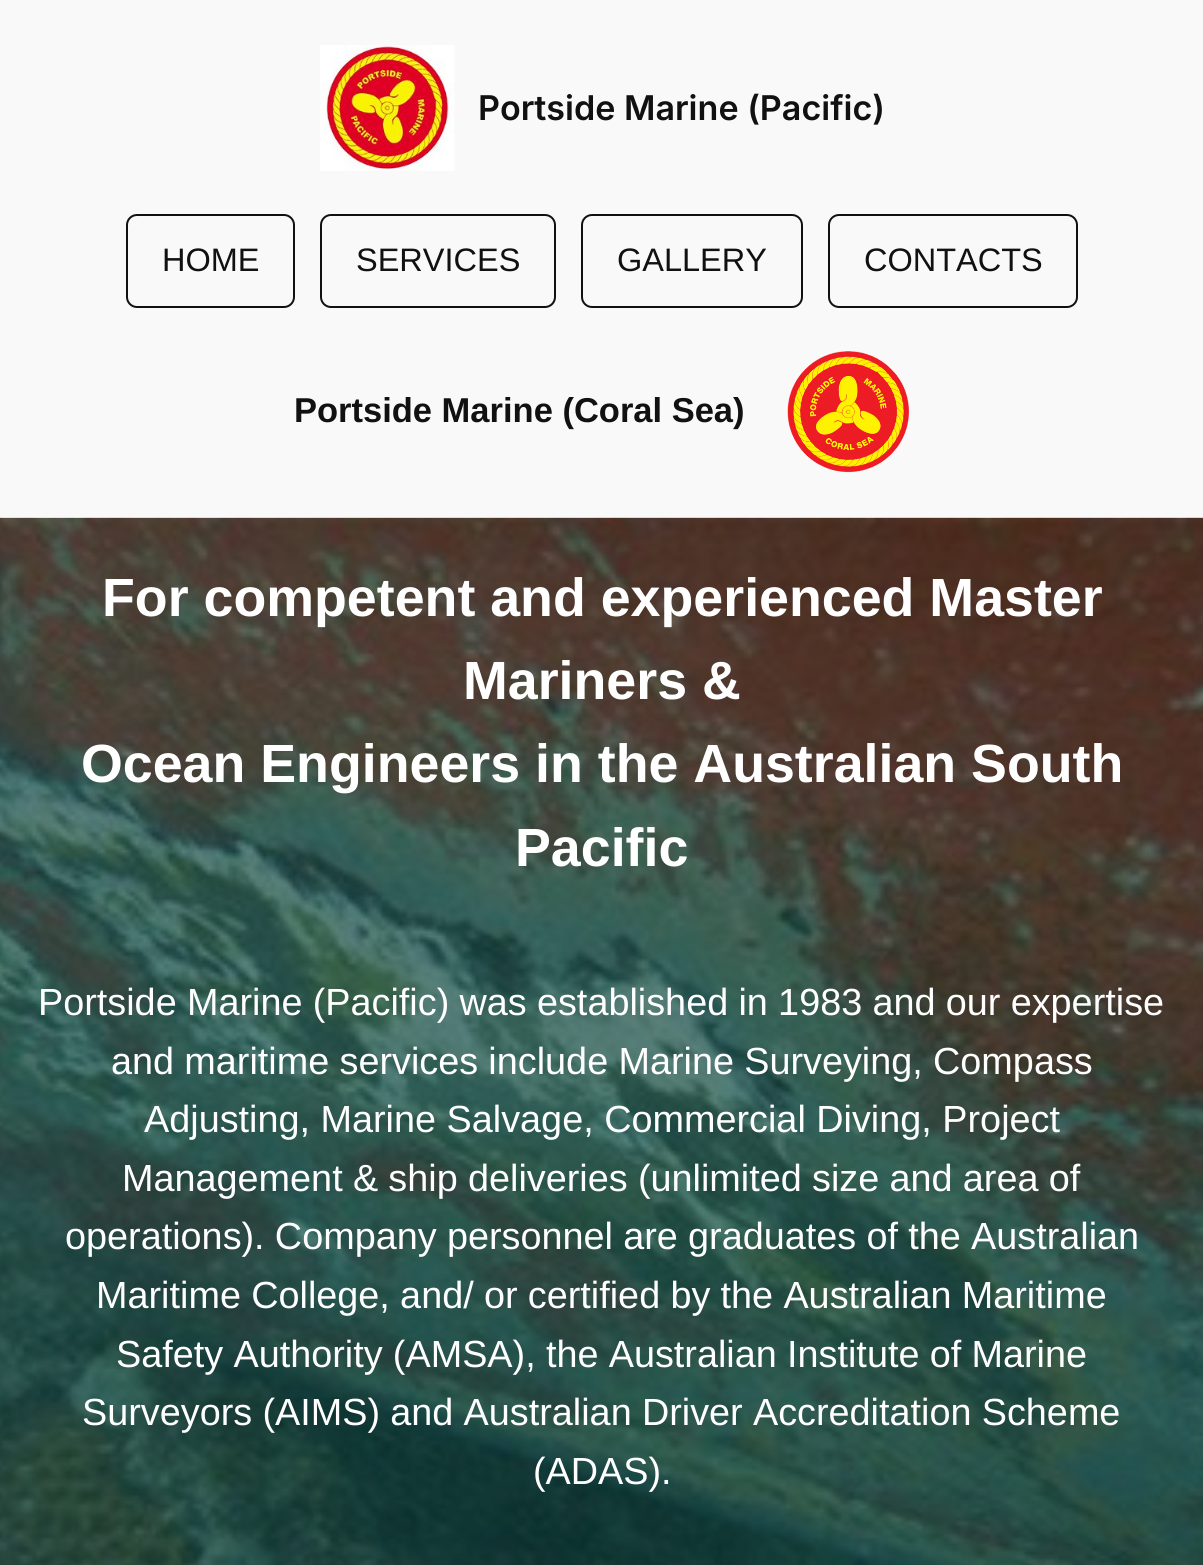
#include <cairo.h>
#include <math.h>
#include <stddef.h>


static void spaced_text(cairo_t *cr, double x, double y, const char *s, double letter, double word) {
    cairo_move_to(cr, x, y);
    while (*s) {
        char ch[5] = {0};
        int n = 0;
        do ch[n++] = *s++; while ((*s & 0xC0) == 0x80);
        cairo_show_text(cr, ch);
        cairo_rel_move_to(cr, letter + word * (*ch == ' '), 0);
    }
}

static void round_rect(cairo_t *cr, double x, double y, double w, double h, double r) {
    cairo_new_sub_path(cr);
    cairo_arc(cr, x + w - r, y + h - r, r, 0, M_PI / 2);
    cairo_arc(cr, x + r, y + h - r, r, M_PI / 2, M_PI);
    cairo_arc(cr, x + r, y + r, r, M_PI, 1.5 * M_PI);
    cairo_arc(cr, x + w - r, y + r, r, 1.5 * M_PI, 2 * M_PI);
    cairo_close_path(cr);
}

static void picture(cairo_t *cr, const char *path, double x, double y, double w, double h) {
    cairo_surface_t *image = cairo_image_surface_create_from_png(path);
    cairo_save(cr);
    cairo_set_source_surface(cr, image, x, y);
    cairo_rectangle(cr, x, y, w, h);
    cairo_fill(cr);
    cairo_restore(cr);
    cairo_surface_destroy(image);
}

int main(void) {
    cairo_surface_t *surface = cairo_image_surface_create(CAIRO_FORMAT_RGB24, 1203, 1565);
    cairo_t *cr = cairo_create(surface);
    cairo_font_options_t *options = cairo_font_options_create();
    cairo_font_options_set_hint_metrics(options, CAIRO_HINT_METRICS_OFF);
    cairo_font_options_set_hint_style(options, CAIRO_HINT_STYLE_NONE);
    cairo_set_font_options(cr, options);
    cairo_set_miter_limit(cr, 4);
    cairo_set_source_rgb(cr, 0.976, 0.976, 0.976);
    cairo_paint(cr);
    picture(cr, "img1.png", 320, 45, 135, 126);
    cairo_select_font_face(cr, "Inter SemiBold", CAIRO_FONT_SLANT_NORMAL, CAIRO_FONT_WEIGHT_NORMAL);
    cairo_set_font_size(cr, 34.1);
    cairo_set_source_rgb(cr, 0.067, 0.067, 0.067);
    cairo_move_to(cr, 478, 120);
    cairo_show_text(cr, "Portside Marine (Pacific)");
    round_rect(cr, 127, 215, 167, 92, 10);
    cairo_stroke(cr);
    cairo_select_font_face(cr, "Liberation Sans", CAIRO_FONT_SLANT_NORMAL, CAIRO_FONT_WEIGHT_NORMAL);
    cairo_set_font_size(cr, 32.5);
    cairo_move_to(cr, 162, 271);
    cairo_show_text(cr, "HOME");
    round_rect(cr, 321, 215, 234, 92, 10);
    cairo_stroke(cr);
    cairo_move_to(cr, 356, 271);
    cairo_show_text(cr, "SERVICES");
    round_rect(cr, 582, 215, 220, 92, 10);
    cairo_stroke(cr);
    cairo_move_to(cr, 617, 271);
    cairo_show_text(cr, "GALLERY");
    round_rect(cr, 829, 215, 248, 92, 10);
    cairo_stroke(cr);
    cairo_move_to(cr, 864, 271);
    cairo_show_text(cr, "CONTACTS");
    cairo_select_font_face(cr, "Liberation Sans", CAIRO_FONT_SLANT_NORMAL, CAIRO_FONT_WEIGHT_BOLD);
    cairo_set_font_size(cr, 34.5);
    cairo_move_to(cr, 294, 422);
    cairo_show_text(cr, "Portside Marine (Coral Sea)");
    picture(cr, "img2.png", 787, 351, 122, 122);
    picture(cr, "img3.png", 0, 517, 1203, 1048);
    cairo_set_font_size(cr, 53.75);
    cairo_set_source_rgb(cr, 1, 1, 1);
    cairo_move_to(cr, 102, 616);
    cairo_show_text(cr, "For competent and experienced Master");
    cairo_move_to(cr, 463, 699);
    cairo_show_text(cr, "Mariners &");
    cairo_move_to(cr, 81, 782);
    cairo_show_text(cr, "Ocean Engineers in the Australian South");
    cairo_move_to(cr, 515, 866);
    cairo_show_text(cr, "Pacific");
    cairo_select_font_face(cr, "Liberation Sans", CAIRO_FONT_SLANT_NORMAL, CAIRO_FONT_WEIGHT_NORMAL);
    cairo_set_font_size(cr, 37.8);
    spaced_text(cr, 38, 1015, "Portside Marine (Pacific) was established in 1983 and our expertise", 0, -0.25);
    spaced_text(cr, 111, 1074, "and maritime services include Marine Surveying, Compass", 0, -0.25);
    cairo_move_to(cr, 144, 1132);
    cairo_show_text(cr, "Adjusting, Marine Salvage, Commercial Diving, Project");
    spaced_text(cr, 122, 1191, "Management & ship deliveries (unlimited size and area of", 0, -0.25);
    spaced_text(cr, 65, 1249, "operations). Company personnel are graduates of the Australian", 0, -0.25);
    spaced_text(cr, 96, 1308, "Maritime College, and/ or certified by the Australian Maritime", 0, -0.25);
    spaced_text(cr, 116, 1367, "Safety Authority (AMSA), the Australian Institute of Marine", 0, -0.25);
    spaced_text(cr, 82, 1425, "Surveyors (AIMS) and Australian Driver Accreditation Scheme", 0, -0.25);
    cairo_move_to(cr, 533, 1484);
    cairo_show_text(cr, "(ADAS).");
    cairo_surface_write_to_png(surface, "page.png");
    cairo_font_options_destroy(options);
    cairo_destroy(cr);
    cairo_surface_destroy(surface);
    return 0;
}
